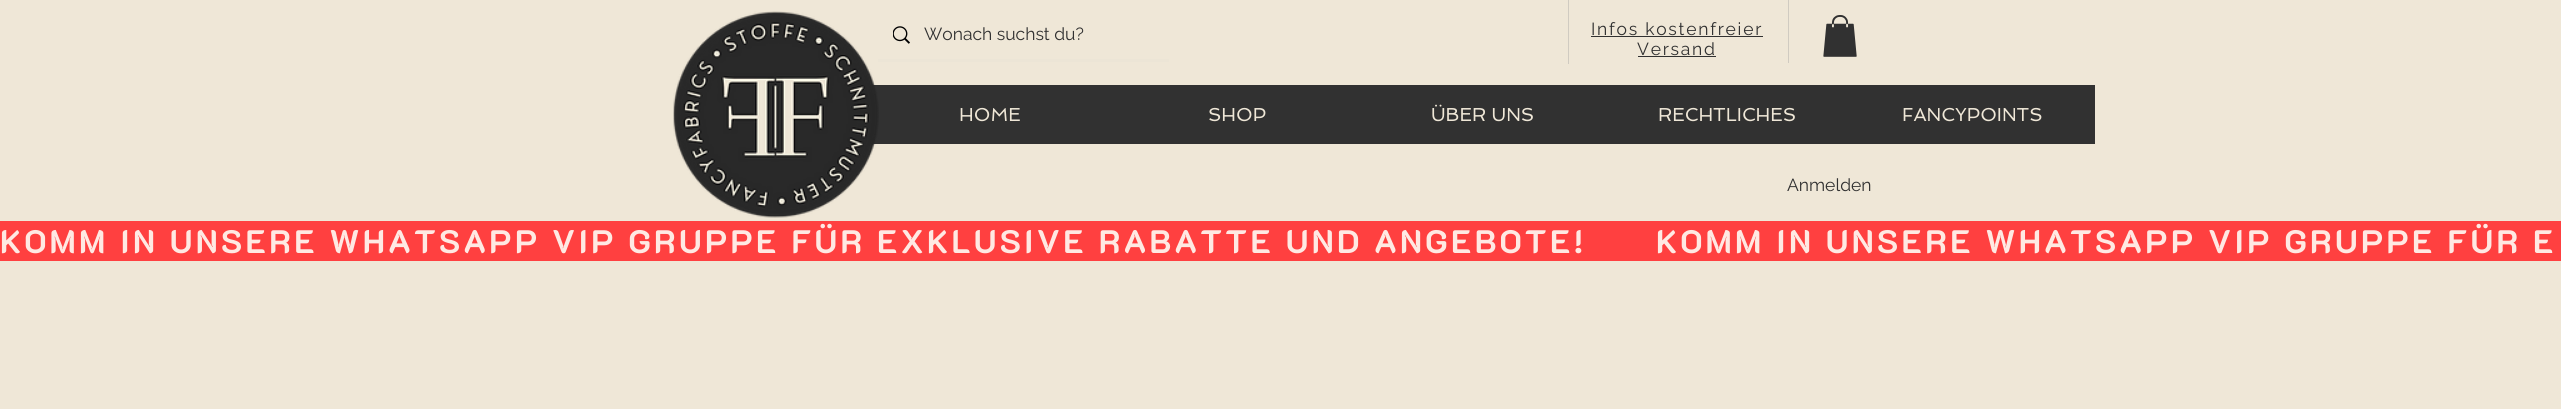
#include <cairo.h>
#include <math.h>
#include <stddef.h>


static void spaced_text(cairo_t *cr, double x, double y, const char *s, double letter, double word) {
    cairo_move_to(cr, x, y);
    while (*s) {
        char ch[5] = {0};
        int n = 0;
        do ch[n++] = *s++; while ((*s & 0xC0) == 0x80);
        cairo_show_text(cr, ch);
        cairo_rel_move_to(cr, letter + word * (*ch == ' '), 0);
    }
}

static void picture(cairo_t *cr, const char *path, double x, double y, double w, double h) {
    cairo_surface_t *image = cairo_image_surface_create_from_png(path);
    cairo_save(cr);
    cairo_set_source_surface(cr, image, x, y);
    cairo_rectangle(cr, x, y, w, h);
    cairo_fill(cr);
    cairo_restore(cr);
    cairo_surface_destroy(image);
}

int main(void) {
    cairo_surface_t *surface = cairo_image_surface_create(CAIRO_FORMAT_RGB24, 2561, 409);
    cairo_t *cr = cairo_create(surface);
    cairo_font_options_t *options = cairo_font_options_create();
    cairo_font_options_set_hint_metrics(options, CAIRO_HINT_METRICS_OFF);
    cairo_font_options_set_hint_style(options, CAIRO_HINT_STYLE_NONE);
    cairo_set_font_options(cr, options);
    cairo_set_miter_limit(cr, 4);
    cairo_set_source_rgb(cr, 0.937, 0.906, 0.843);
    cairo_paint(cr);
    cairo_set_source_rgb(cr, 0.922, 0.898, 0.839);
    cairo_rectangle(cr, 878, 59, 291, 3);
    cairo_fill(cr);
    cairo_set_source_rgb(cr, 0.192, 0.192, 0.192);
    cairo_rectangle(cr, 870, 85, 1225, 59);
    cairo_fill(cr);
    picture(cr, "img1.png", 673, 11, 206, 207);
    cairo_set_source_rgb(cr, 0.816, 0.796, 0.757);
    cairo_rectangle(cr, 1568, 0, 1, 64);
    cairo_fill(cr);
    picture(cr, "img2.png", 1823, 15, 34, 42);
    picture(cr, "img3.png", 893, 26, 17, 18);
    cairo_select_font_face(cr, "Raleway", CAIRO_FONT_SLANT_NORMAL, CAIRO_FONT_WEIGHT_NORMAL);
    cairo_set_font_size(cr, 17.5);
    cairo_set_source_rgb(cr, 0.192, 0.192, 0.192);
    cairo_move_to(cr, 924, 40);
    cairo_show_text(cr, "Wonach suchst du?");
    spaced_text(cr, 1591, 35, "Infos kostenfreier", 1.75, 0);
    cairo_rectangle(cr, 1591, 36, 172, 1);
    cairo_fill(cr);
    spaced_text(cr, 1637, 55, "Versand", 1.75, 0);
    cairo_rectangle(cr, 1638, 56, 78, 1);
    cairo_fill(cr);
    cairo_set_source_rgb(cr, 0.816, 0.796, 0.757);
    cairo_rectangle(cr, 1788, 0, 1, 63);
    cairo_fill(cr);
    cairo_select_font_face(cr, "Spinnaker", CAIRO_FONT_SLANT_NORMAL, CAIRO_FONT_WEIGHT_NORMAL);
    cairo_set_font_size(cr, 18.75);
    cairo_set_source_rgb(cr, 0.937, 0.906, 0.843);
    cairo_move_to(cr, 959, 121);
    cairo_show_text(cr, "HOME");
    cairo_move_to(cr, 1208, 121);
    cairo_show_text(cr, "SHOP");
    cairo_move_to(cr, 1431, 121);
    cairo_show_text(cr, "ÜBER UNS");
    cairo_move_to(cr, 1658, 121);
    cairo_show_text(cr, "RECHTLICHES");
    cairo_move_to(cr, 1902, 121);
    cairo_show_text(cr, "FANCYPOINTS");
    cairo_select_font_face(cr, "Raleway", CAIRO_FONT_SLANT_NORMAL, CAIRO_FONT_WEIGHT_NORMAL);
    cairo_set_font_size(cr, 17.5);
    cairo_set_source_rgb(cr, 0.192, 0.192, 0.192);
    cairo_move_to(cr, 1787, 191);
    cairo_show_text(cr, "Anmelden");
    cairo_set_source_rgb(cr, 1, 0.251, 0.251);
    cairo_rectangle(cr, 0, 221, 2561, 40);
    cairo_fill(cr);
    cairo_select_font_face(cr, "K2D", CAIRO_FONT_SLANT_NORMAL, CAIRO_FONT_WEIGHT_BOLD);
    cairo_set_font_size(cr, 32.5);
    cairo_set_source_rgb(cr, 1, 0.914, 0.89);
    spaced_text(cr, 0, 253, "KOMM IN UNSERE WHATSAPP VIP GRUPPE FÜR EXKLUSIVE RABATTE UND ANGEBOTE!", 3.25, 0);
    spaced_text(cr, 1656, 253, "KOMM IN UNSERE WHATSAPP VIP GRUPPE FÜR E", 3.25, 0);
    cairo_surface_write_to_png(surface, "page.png");
    cairo_font_options_destroy(options);
    cairo_destroy(cr);
    cairo_surface_destroy(surface);
    return 0;
}
